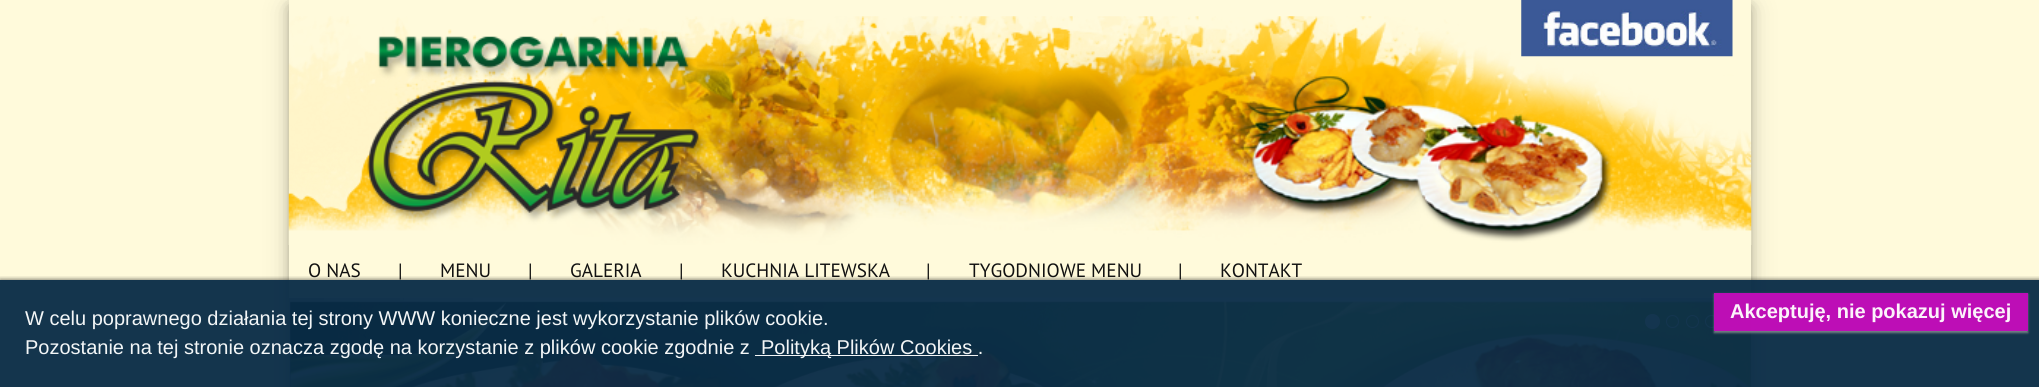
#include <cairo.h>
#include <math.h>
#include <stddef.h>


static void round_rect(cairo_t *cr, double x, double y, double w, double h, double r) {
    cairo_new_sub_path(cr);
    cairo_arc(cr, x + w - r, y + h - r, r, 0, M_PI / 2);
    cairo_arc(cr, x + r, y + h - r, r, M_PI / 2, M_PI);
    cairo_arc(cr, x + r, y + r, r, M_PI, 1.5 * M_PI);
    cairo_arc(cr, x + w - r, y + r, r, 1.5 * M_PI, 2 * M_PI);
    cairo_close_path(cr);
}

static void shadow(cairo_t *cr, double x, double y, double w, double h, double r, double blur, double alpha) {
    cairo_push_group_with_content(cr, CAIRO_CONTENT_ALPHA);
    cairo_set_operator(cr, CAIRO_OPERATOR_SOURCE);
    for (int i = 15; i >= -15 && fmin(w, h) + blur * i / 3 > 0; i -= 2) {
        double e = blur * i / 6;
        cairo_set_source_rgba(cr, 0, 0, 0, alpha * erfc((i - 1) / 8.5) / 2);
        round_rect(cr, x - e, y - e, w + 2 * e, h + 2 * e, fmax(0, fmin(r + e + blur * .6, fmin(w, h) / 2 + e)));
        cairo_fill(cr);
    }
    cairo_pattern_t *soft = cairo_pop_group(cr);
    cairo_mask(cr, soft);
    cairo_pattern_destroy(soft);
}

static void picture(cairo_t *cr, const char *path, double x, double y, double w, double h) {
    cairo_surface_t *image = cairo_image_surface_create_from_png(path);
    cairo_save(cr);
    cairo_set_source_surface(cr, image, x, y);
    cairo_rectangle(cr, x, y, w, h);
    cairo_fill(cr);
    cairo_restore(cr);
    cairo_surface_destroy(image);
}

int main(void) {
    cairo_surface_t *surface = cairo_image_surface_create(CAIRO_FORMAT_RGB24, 2039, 387);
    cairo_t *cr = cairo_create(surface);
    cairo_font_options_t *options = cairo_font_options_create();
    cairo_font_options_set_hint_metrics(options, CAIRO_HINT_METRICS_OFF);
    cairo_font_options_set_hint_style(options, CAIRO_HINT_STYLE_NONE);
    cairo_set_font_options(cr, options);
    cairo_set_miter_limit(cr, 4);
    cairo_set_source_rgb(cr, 1, 0.98, 0.859);
    cairo_paint(cr);
    cairo_save(cr);
    cairo_set_fill_rule(cr, CAIRO_FILL_RULE_EVEN_ODD);
    cairo_new_path(cr);
    cairo_move_to(cr, 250, 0);
    cairo_line_to(cr, 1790, 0);
    cairo_line_to(cr, 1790, 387);
    cairo_line_to(cr, 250, 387);
    cairo_close_path(cr);
    cairo_move_to(cr, 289, 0);
    cairo_line_to(cr, 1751, 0);
    cairo_line_to(cr, 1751, 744);
    cairo_line_to(cr, 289, 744);
    cairo_close_path(cr);
    cairo_clip(cr);
    cairo_set_source_rgb(cr, 0, 0, 0);
    shadow(cr, 289, 8, 1462, 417, 0, 12.5, 0.19);
    cairo_restore(cr);
    cairo_save(cr);
    cairo_set_fill_rule(cr, CAIRO_FILL_RULE_EVEN_ODD);
    cairo_new_path(cr);
    cairo_move_to(cr, 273, 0);
    cairo_line_to(cr, 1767, 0);
    cairo_line_to(cr, 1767, 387);
    cairo_line_to(cr, 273, 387);
    cairo_close_path(cr);
    cairo_move_to(cr, 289, 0);
    cairo_line_to(cr, 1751, 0);
    cairo_line_to(cr, 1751, 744);
    cairo_line_to(cr, 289, 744);
    cairo_close_path(cr);
    cairo_clip(cr);
    cairo_set_source_rgb(cr, 0, 0, 0);
    shadow(cr, 289, 5, 1462, 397, 0, 5, 0.2);
    cairo_restore(cr);
    picture(cr, "img2.png", 288, 16, 1464, 229);
    picture(cr, "img1.png", 1521, 0, 212, 57);
    cairo_select_font_face(cr, "PT Sans", CAIRO_FONT_SLANT_NORMAL, CAIRO_FONT_WEIGHT_NORMAL);
    cairo_set_font_size(cr, 19.25);
    cairo_set_source_rgb(cr, 0.067, 0.067, 0.067);
    cairo_move_to(cr, 308, 277);
    cairo_show_text(cr, "O NAS");
    cairo_move_to(cr, 398, 277);
    cairo_show_text(cr, "|");
    cairo_move_to(cr, 440, 277);
    cairo_show_text(cr, "MENU");
    cairo_move_to(cr, 528, 277);
    cairo_show_text(cr, "|");
    cairo_move_to(cr, 570, 277);
    cairo_show_text(cr, "GALERIA");
    cairo_move_to(cr, 679, 277);
    cairo_show_text(cr, "|");
    cairo_move_to(cr, 721, 277);
    cairo_show_text(cr, "KUCHNIA LITEWSKA");
    cairo_move_to(cr, 926, 277);
    cairo_show_text(cr, "|");
    cairo_move_to(cr, 969, 277);
    cairo_show_text(cr, "TYGODNIOWE MENU");
    cairo_move_to(cr, 1178, 277);
    cairo_show_text(cr, "|");
    cairo_move_to(cr, 1220, 277);
    cairo_show_text(cr, "KONTAKT");
    picture(cr, "img3.png", 289, 297, 1462, 90);
    cairo_set_source_rgb(cr, 1, 1, 1);
    cairo_arc(cr, 1652.5, 321.5, 7, 0, 2 * M_PI);
    cairo_fill_preserve(cr);
    cairo_set_line_width(cr, 1);
    cairo_stroke(cr);
    cairo_arc(cr, 1672.5, 321.5, 6, 0, 2 * M_PI);
    cairo_stroke(cr);
    cairo_arc(cr, 1692.5, 321.5, 6, 0, 2 * M_PI);
    cairo_stroke(cr);
    cairo_arc(cr, 1711.5, 321.5, 6, 0, 2 * M_PI);
    cairo_stroke(cr);
    cairo_arc(cr, 1731.5, 321.5, 6, 0, 2 * M_PI);
    cairo_stroke(cr);
    cairo_save(cr);
    cairo_rectangle(cr, 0, 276, 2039, 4);
    cairo_clip(cr);
    cairo_set_source_rgb(cr, 0, 0, 0);
    shadow(cr, 0, 279, 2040, 107, 0, 2, 0.47);
    cairo_restore(cr);
    cairo_set_source_rgba(cr, 0.035, 0.169, 0.278, 0.95);
    cairo_rectangle(cr, 0, 280, 2039, 107);
    cairo_fill(cr);
    cairo_select_font_face(cr, "Liberation Sans", CAIRO_FONT_SLANT_NORMAL, CAIRO_FONT_WEIGHT_NORMAL);
    cairo_set_font_size(cr, 20);
    cairo_set_source_rgb(cr, 0.953, 0.961, 0.965);
    cairo_move_to(cr, 25, 325);
    cairo_show_text(cr, "W celu poprawnego działania tej strony WWW konieczne jest wykorzystanie plików cookie.");
    cairo_save(cr);
    cairo_set_fill_rule(cr, CAIRO_FILL_RULE_EVEN_ODD);
    cairo_new_path(cr);
    cairo_move_to(cr, 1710, 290);
    cairo_line_to(cr, 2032, 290);
    cairo_line_to(cr, 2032, 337);
    cairo_line_to(cr, 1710, 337);
    cairo_close_path(cr);
    cairo_move_to(cr, 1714, 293);
    cairo_line_to(cr, 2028, 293);
    cairo_line_to(cr, 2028, 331);
    cairo_line_to(cr, 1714, 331);
    cairo_close_path(cr);
    cairo_clip(cr);
    cairo_set_source_rgb(cr, 0.608, 0.608, 0.608);
    shadow(cr, 1714, 294, 314, 39, 0, 1, 0.71);
    cairo_restore(cr);
    cairo_set_source_rgba(cr, 0.776, 0.051, 0.733, 0.95);
    cairo_rectangle(cr, 1714, 293, 314, 38);
    cairo_fill(cr);
    cairo_select_font_face(cr, "Liberation Sans", CAIRO_FONT_SLANT_NORMAL, CAIRO_FONT_WEIGHT_BOLD);
    cairo_set_source_rgb(cr, 0.988, 0.953, 0.984);
    cairo_move_to(cr, 1730, 318);
    cairo_show_text(cr, "Akceptuję, nie pokazuj więcej");
    cairo_select_font_face(cr, "Liberation Sans", CAIRO_FONT_SLANT_NORMAL, CAIRO_FONT_WEIGHT_NORMAL);
    cairo_set_source_rgb(cr, 0.953, 0.961, 0.965);
    cairo_move_to(cr, 25, 354);
    cairo_show_text(cr, "Pozostanie na tej stronie oznacza zgodę na korzystanie z plików cookie zgodnie z");
    cairo_set_source_rgba(cr, 1, 1, 1, 0.95);
    cairo_rectangle(cr, 755, 355, 223, 1);
    cairo_fill(cr);
    cairo_set_source_rgb(cr, 0.953, 0.961, 0.965);
    cairo_move_to(cr, 761, 354);
    cairo_show_text(cr, "Polityką Plików Cookies .");
    cairo_surface_write_to_png(surface, "page.png");
    cairo_font_options_destroy(options);
    cairo_destroy(cr);
    cairo_surface_destroy(surface);
    return 0;
}
